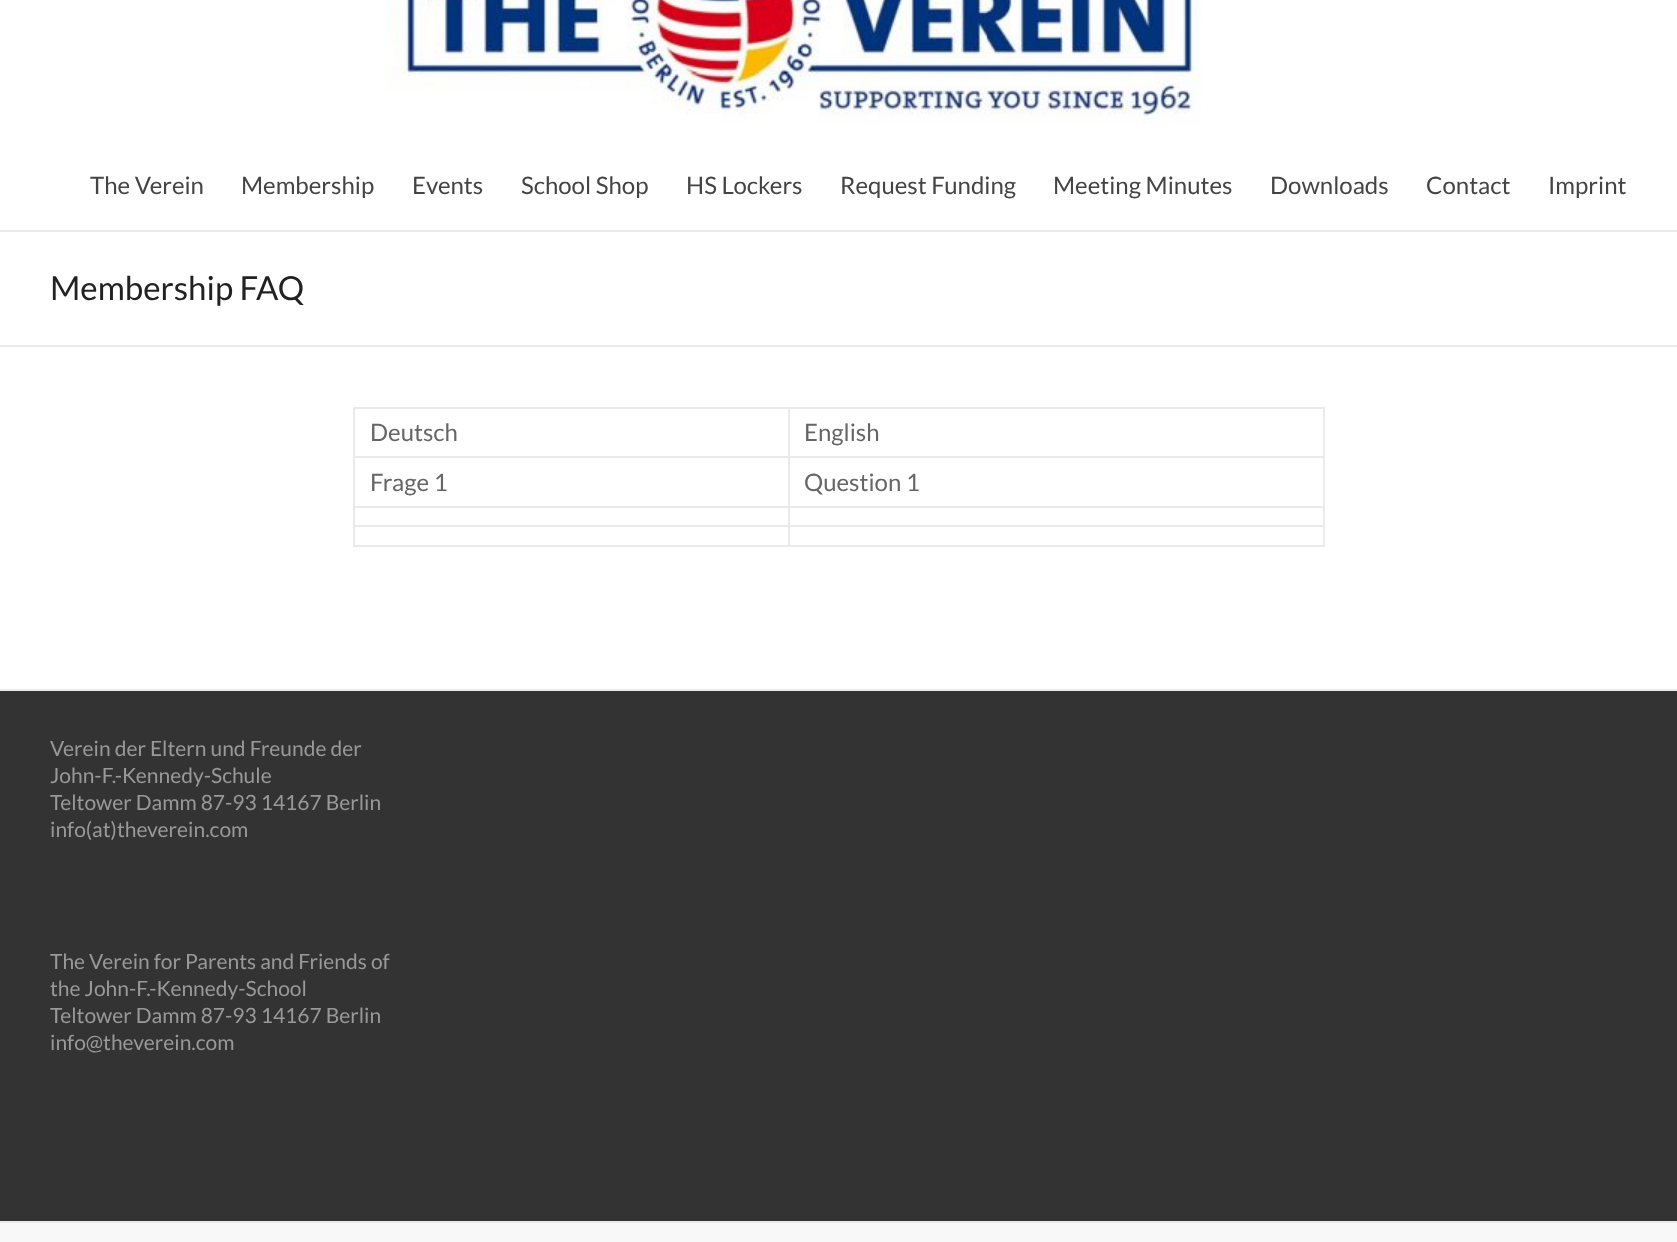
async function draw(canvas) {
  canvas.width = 1677;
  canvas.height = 1242;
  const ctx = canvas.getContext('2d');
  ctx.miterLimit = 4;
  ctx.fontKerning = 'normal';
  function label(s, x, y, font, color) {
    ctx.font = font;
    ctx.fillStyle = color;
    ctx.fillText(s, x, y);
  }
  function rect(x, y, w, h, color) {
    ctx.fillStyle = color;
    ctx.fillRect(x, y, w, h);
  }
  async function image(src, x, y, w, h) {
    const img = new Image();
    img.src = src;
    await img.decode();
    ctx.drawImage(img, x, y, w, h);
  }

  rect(0, 0, 1677, 1242, '#fff');
  rect(0, 230, 1677, 2, '#eaeaea');
  await image('assets/img1.png', 386, 0, 815, 124);
  label('The Verein', 90, 194, '24px Lato', '#444');
  label('Membership', 241, 194, '24px Lato', '#444');
  label('Events', 412, 194, '24px Lato', '#444');
  label('School Shop', 521, 194, '24px Lato', '#444');
  label('HS Lockers', 686, 194, '24px Lato', '#444');
  label('Request Funding', 840, 194, '24px Lato', '#444');
  label('Meeting Minutes', 1053, 194, '24px Lato', '#444');
  label('Downloads', 1270, 194, '24px Lato', '#444');
  label('Contact', 1426, 194, '24px Lato', '#444');
  label('Imprint', 1548, 194, '24px Lato', '#444');
  rect(0, 345, 1677, 2, '#eaeaea');
  label('Membership FAQ', 50, 300, '33px Lato', '#222');
  rect(788, 407, 537, 2, '#eaeaea');
  rect(788, 456, 537, 2, '#eaeaea');
  rect(788, 506, 537, 2, '#eaeaea');
  rect(788, 525, 537, 2, '#eaeaea');
  rect(1323, 525, 2, 21, '#eaeaea');
  rect(788, 545, 537, 2, '#eaeaea');
  rect(788, 525, 2, 21, '#eaeaea');
  rect(353, 525, 436, 2, '#eaeaea');
  rect(788, 506, 2, 21, '#eaeaea');
  rect(353, 506, 436, 2, '#eaeaea');
  rect(788, 456, 2, 51, '#eaeaea');
  rect(353, 456, 436, 2, '#eaeaea');
  rect(788, 407, 2, 51, '#eaeaea');
  rect(353, 407, 436, 2, '#eaeaea');
  rect(353, 545, 436, 2, '#eaeaea');
  rect(353, 525, 2, 21, '#eaeaea');
  rect(353, 506, 2, 21, '#eaeaea');
  rect(353, 456, 2, 51, '#eaeaea');
  rect(353, 407, 2, 51, '#eaeaea');
  label('Deutsch', 370, 441, '24px Lato', '#666');
  rect(1323, 506, 2, 21, '#eaeaea');
  rect(1323, 456, 2, 51, '#eaeaea');
  rect(1323, 407, 2, 51, '#eaeaea');
  label('English', 804, 441, '24px Lato', '#666');
  label('Frage 1', 370, 491, '24px Lato', '#666');
  label('Question 1', 804, 491, '24px Lato', '#666');
  rect(0, 691, 1677, 530, '#333');
  rect(0, 689, 1677, 2, '#eaeaea');
  label('Verein der Eltern und Freunde der', 50, 756, '21px Lato', '#999');
  label('John-F.-Kennedy-Schule', 50, 783, '21px Lato', '#999');
  label('Teltower Damm 87-93 14167 Berlin', 50, 810, '21px Lato', '#999');
  label('info(at)theverein.com', 50, 837, '21px Lato', '#999');
  label('The Verein for Parents and Friends of', 50, 969, '21px Lato', '#999');
  label('the John-F.-Kennedy-School', 50, 996, '21px Lato', '#999');
  label('Teltower Damm 87-93 14167 Berlin', 50, 1023, '21px Lato', '#999');
  label('info@theverein.com', 50, 1050, '21px Lato', '#999');
  rect(0, 1223, 1677, 19, '#f8f8f8');
  rect(0, 1221, 1677, 2, '#eaeaea');
}

draw(document.querySelector('canvas'));
